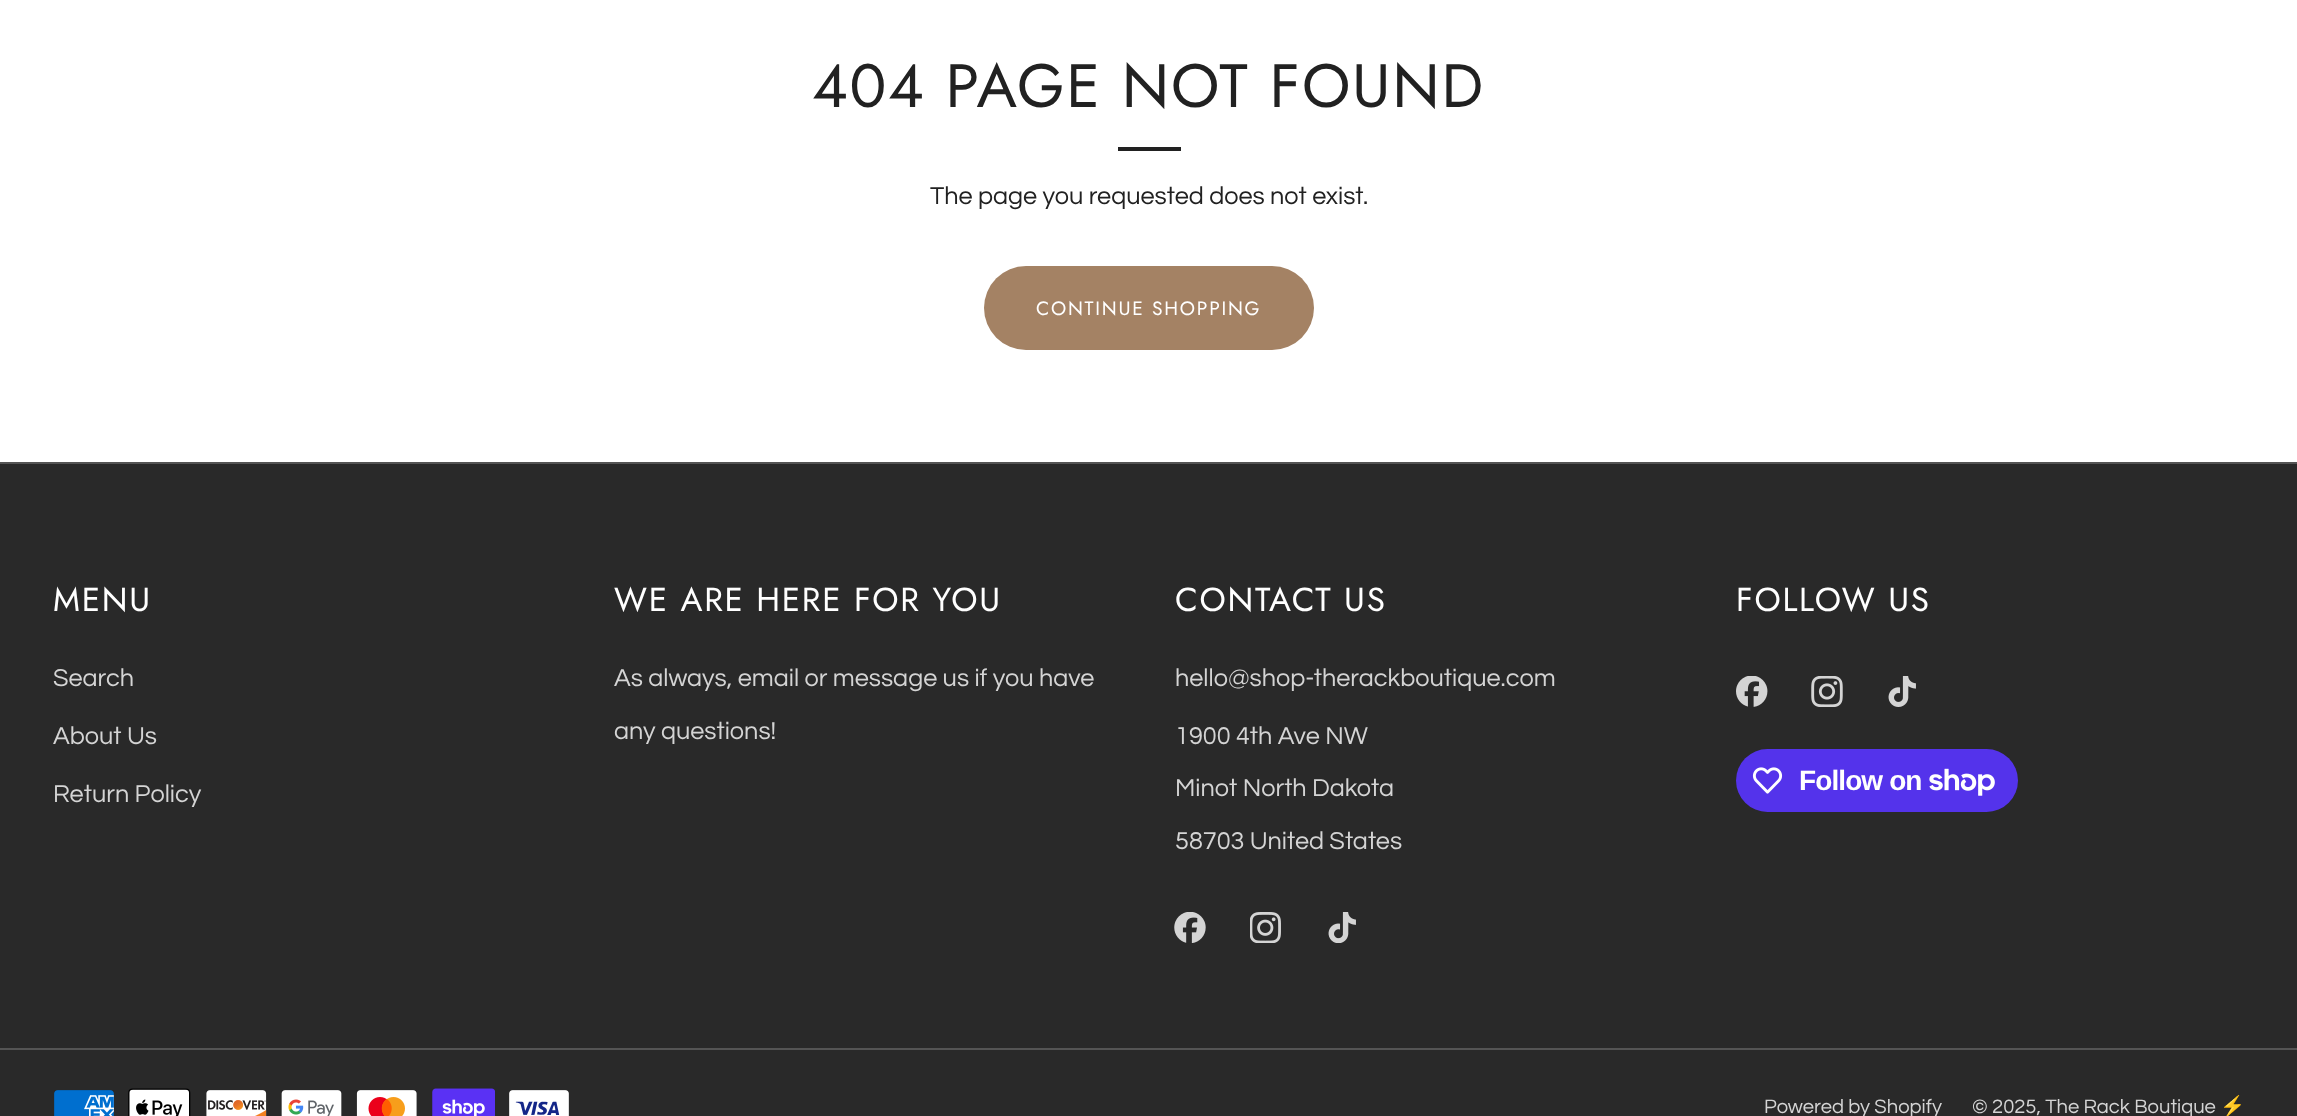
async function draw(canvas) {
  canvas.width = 2297;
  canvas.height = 1116;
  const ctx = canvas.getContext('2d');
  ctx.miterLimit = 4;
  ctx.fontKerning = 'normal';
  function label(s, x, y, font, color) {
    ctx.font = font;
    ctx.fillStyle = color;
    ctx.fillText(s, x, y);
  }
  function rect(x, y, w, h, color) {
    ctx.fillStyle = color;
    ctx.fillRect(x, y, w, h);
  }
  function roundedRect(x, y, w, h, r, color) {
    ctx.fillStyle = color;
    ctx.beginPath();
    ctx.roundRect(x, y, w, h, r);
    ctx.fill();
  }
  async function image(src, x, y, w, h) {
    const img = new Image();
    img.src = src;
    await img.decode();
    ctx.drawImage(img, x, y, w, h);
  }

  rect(0, 0, 2297, 1116, '#fff');
  ctx.letterSpacing = '1.75px';
  label('404 PAGE NOT FOUND', 812, 107, '61.25px Jost', '#212121');
  rect(1118, 147, 63, 4, '#212121');
  ctx.letterSpacing = '0px';
  label('The page you requested does not exist.', 930, 204, '25.25px Questrial', '#212121');
  roundedRect(984, 266, 330, 84, 42, '#a48264');
  ctx.letterSpacing = '1.75px';
  label('CONTINUE SHOPPING', 1036, 315, '19.25px Jost', '#fff');
  rect(0, 464, 2297, 652, '#292929');
  rect(0, 462, 2297, 2, '#545454');
  label('MENU', 53, 611, '33.25px Jost', '#fff');
  ctx.letterSpacing = '0px';
  label('Search', 53, 686, '25.25px Questrial', '#d4d4d4');
  label('About Us', 53, 744, '25.25px Questrial', '#d4d4d4');
  label('Return Policy', 53, 802, '25.25px Questrial', '#d4d4d4');
  ctx.letterSpacing = '1.75px';
  label('WE ARE HERE FOR YOU', 614, 611, '33.25px Jost', '#fff');
  ctx.letterSpacing = '0px';
  label('As always, email or message us if you have', 614, 686, '25.25px Questrial', '#d4d4d4');
  label('any questions!', 614, 739, '25.25px Questrial', '#d4d4d4');
  ctx.letterSpacing = '1.75px';
  label('CONTACT US', 1175, 611, '33.25px Jost', '#fff');
  ctx.letterSpacing = '0px';
  label('hello@shop-therackboutique.com', 1175, 686, '25.25px Questrial', '#d4d4d4');
  label('1900 4th Ave NW', 1175, 744, '25.25px Questrial', '#d4d4d4');
  label('Minot North Dakota', 1175, 796, '25.25px Questrial', '#d4d4d4');
  label('58703 United States', 1175, 849, '25.25px Questrial', '#d4d4d4');
  await image('assets/img1.png', 1174, 912, 32, 31);
  await image('assets/img2.png', 1250, 912, 31, 31);
  await image('assets/img3.png', 1328, 912, 28, 31);
  ctx.letterSpacing = '1.75px';
  label('FOLLOW US', 1736, 611, '33.25px Jost', '#fff');
  await image('assets/img4.png', 1736, 676, 32, 31);
  await image('assets/img5.png', 1811, 676, 32, 31);
  await image('assets/img6.png', 1888, 676, 28, 31);
  roundedRect(1736, 749, 282, 63, 31.5, '#5433eb');
  await image('assets/img7.png', 1752, 767, 31, 27);
  ctx.letterSpacing = '-0.9px';
  label('Follow on', 1799, 790, 'bold 28px Liberation Sans', '#fff');
  await image('assets/img8.png', 1929, 768, 66, 28);
  rect(0, 1048, 2297, 2, '#545454');
  await image('assets/img9.png', 54, 1090, 60, 26);
  await image('assets/img10.png', 128, 1088, 63, 28);
  await image('assets/img11.png', 206, 1090, 61, 26);
  await image('assets/img12.png', 281, 1090, 61, 26);
  await image('assets/img13.png', 356, 1090, 61, 26);
  await image('assets/img14.png', 432, 1088, 63, 28);
  await image('assets/img15.png', 509, 1090, 60, 26);
  ctx.letterSpacing = '0px';
  label('Powered by Shopify', 1764, 1113, '20.2px Questrial', '#d4d4d4');
  label('© 2025, The Rack Boutique', 1972, 1113, '20.2px Questrial', '#d4d4d4');
  label('⚡️', 2220, 1113, '20.2px Noto Color Emoji', '#d4d4d4');
}

draw(document.querySelector('canvas'));
